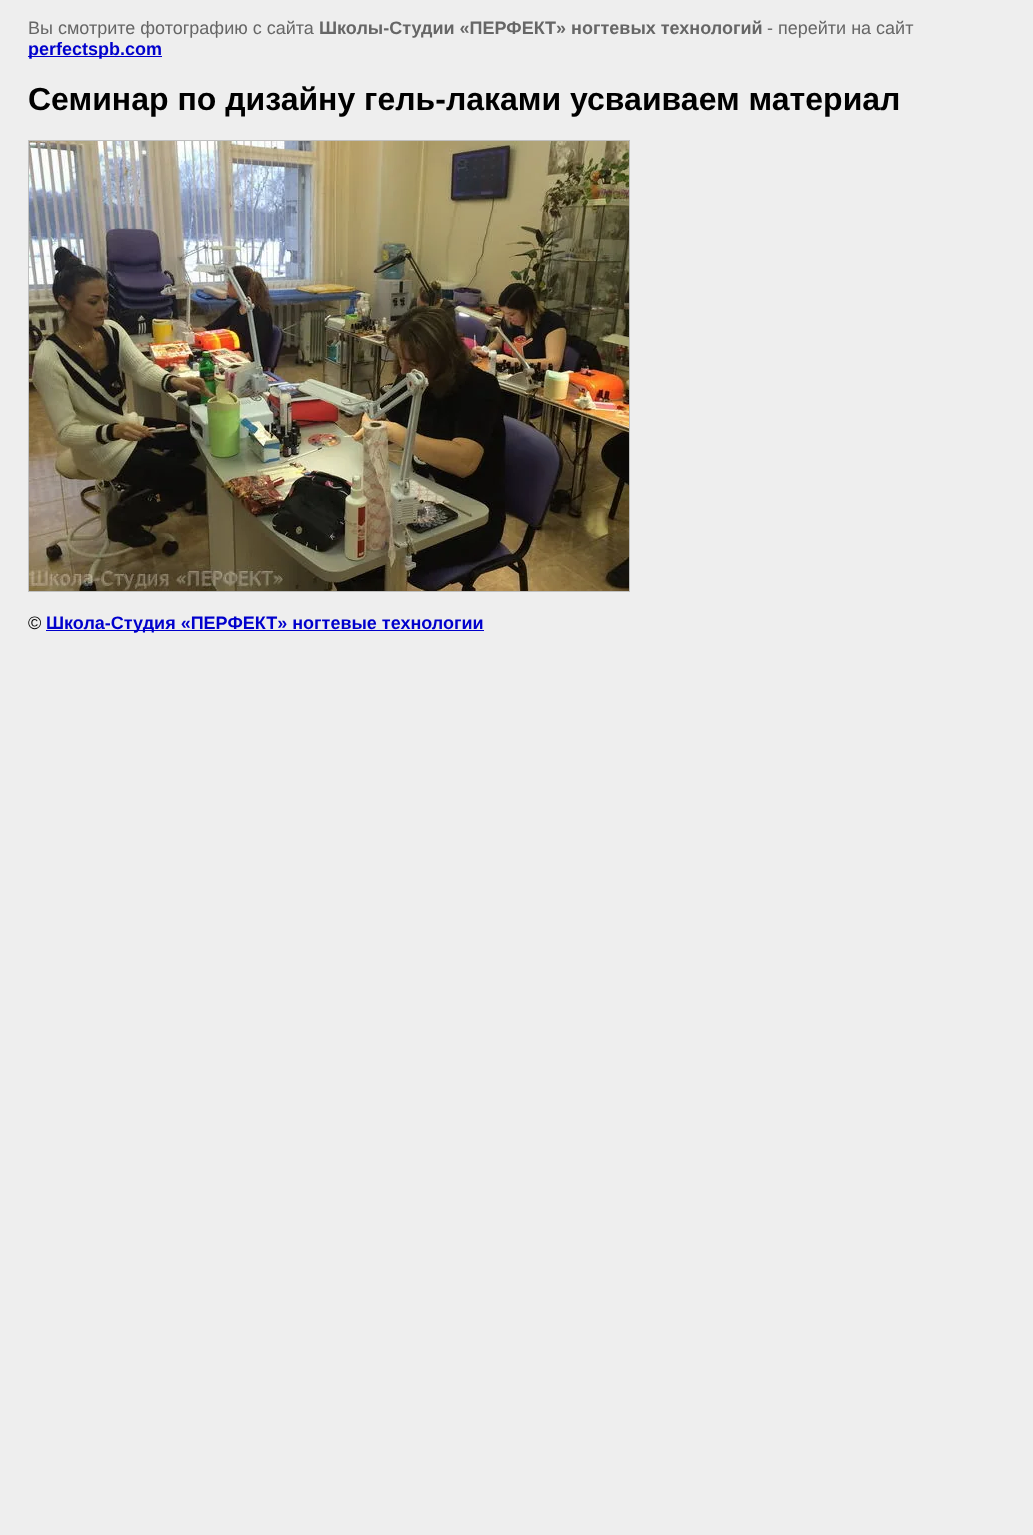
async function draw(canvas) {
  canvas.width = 1033;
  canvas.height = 1535;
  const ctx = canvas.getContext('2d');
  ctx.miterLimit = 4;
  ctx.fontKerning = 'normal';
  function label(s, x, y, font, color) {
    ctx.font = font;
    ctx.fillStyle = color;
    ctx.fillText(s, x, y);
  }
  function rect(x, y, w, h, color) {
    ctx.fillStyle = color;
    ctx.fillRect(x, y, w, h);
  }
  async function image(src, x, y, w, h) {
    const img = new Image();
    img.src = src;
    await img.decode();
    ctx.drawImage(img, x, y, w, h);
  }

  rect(0, 0, 1033, 1535, '#eee');
  label('Вы смотрите фотографию с сайта', 28, 34, '18px Liberation Sans', '#666');
  label('Школы-Студии «ПЕРФЕКТ» ногтевых технологий', 319, 34, 'bold 18px Liberation Sans', '#666');
  label('- перейти на сайт', 767, 34, '18px Liberation Sans', '#666');
  rect(28, 56, 134, 1, '#00c');
  label('perfectspb.com', 28, 55, 'bold 18px Liberation Sans', '#00c');
  label('Семинар по дизайну гель-лаками усваиваем материал', 28, 110, 'bold 32px Liberation Sans', '#000');
  ctx.strokeStyle = '#c0c0c0';
  ctx.strokeRect(28.5, 140.5, 601, 451);
  await image('assets/img1.png', 29, 141, 600, 450);
  label('©', 28, 629, '18px Liberation Sans', '#000');
  rect(46, 630, 438, 1, '#00c');
  label('Школа-Студия «ПЕРФЕКТ» ногтевые технологии', 46, 629, 'bold 18px Liberation Sans', '#00c');
}

draw(document.querySelector('canvas'));
